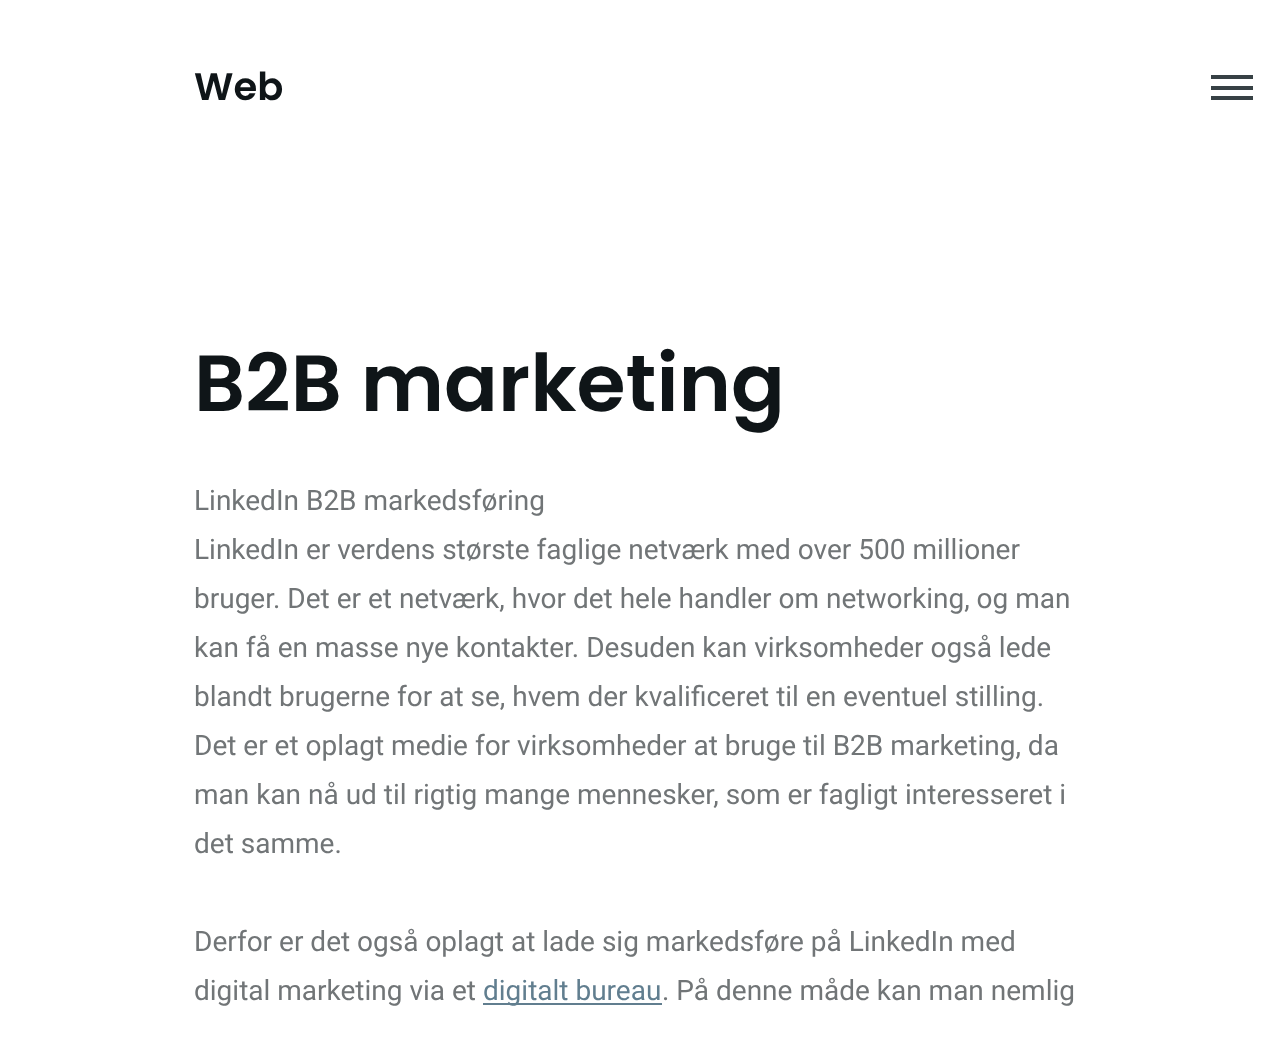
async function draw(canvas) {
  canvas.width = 1281;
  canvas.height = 1038;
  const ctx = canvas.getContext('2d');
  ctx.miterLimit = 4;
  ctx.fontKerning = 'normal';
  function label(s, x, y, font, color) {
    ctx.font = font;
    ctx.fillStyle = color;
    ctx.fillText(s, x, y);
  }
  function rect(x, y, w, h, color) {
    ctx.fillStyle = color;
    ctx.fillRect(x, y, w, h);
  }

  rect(0, 0, 1281, 1038, '#fff');
  label('Web', 194, 100, '600 38.5px Poppins', '#0f1518');
  rect(1211, 86, 42, 4, '#374145');
  rect(1211, 75, 42, 4, '#374145');
  rect(1211, 96, 42, 4, '#374145');
  label('B2B marketing', 194, 411, '600 79.5px Poppins', '#0f1518');
  label('LinkedIn B2B markedsføring', 194, 510, '28px Roboto', '#717577');
  label('LinkedIn er verdens største faglige netværk med over 500 millioner', 194, 559, '28px Roboto', '#717577');
  label('bruger. Det er et netværk, hvor det hele handler om networking, og man', 194, 608, '28px Roboto', '#717577');
  label('kan få en masse nye kontakter. Desuden kan virksomheder også lede', 194, 657, '28px Roboto', '#717577');
  label('blandt brugerne for at se, hvem der kvalificeret til en eventuel stilling.', 194, 706, '28px Roboto', '#717577');
  label('Det er et oplagt medie for virksomheder at bruge til B2B marketing, da', 194, 755, '28px Roboto', '#717577');
  label('man kan nå ud til rigtig mange mennesker, som er fagligt interesseret i', 194, 804, '28px Roboto', '#717577');
  label('det samme.', 194, 853, '28px Roboto', '#717577');
  label('Derfor er det også oplagt at lade sig markedsføre på LinkedIn med', 194, 951, '28px Roboto', '#717577');
  label('digital marketing via et', 194, 1000, '28px Roboto', '#717577');
  rect(483, 1003, 179, 2, '#617e8f');
  label('digitalt bureau', 483, 1000, '28px Roboto', '#617e8f');
  label('. På denne måde kan man nemlig', 662, 1000, '28px Roboto', '#717577');
}

draw(document.querySelector('canvas'));
